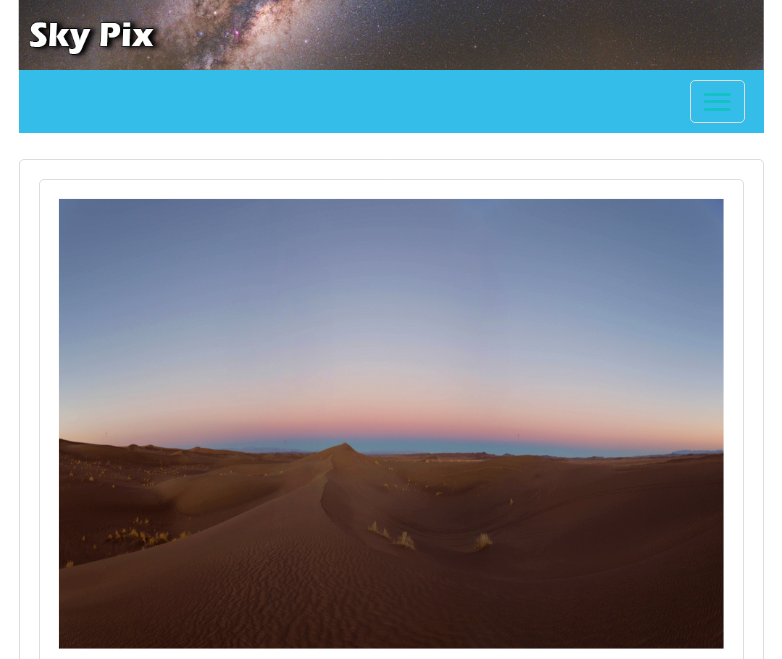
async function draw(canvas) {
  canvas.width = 782;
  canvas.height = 659;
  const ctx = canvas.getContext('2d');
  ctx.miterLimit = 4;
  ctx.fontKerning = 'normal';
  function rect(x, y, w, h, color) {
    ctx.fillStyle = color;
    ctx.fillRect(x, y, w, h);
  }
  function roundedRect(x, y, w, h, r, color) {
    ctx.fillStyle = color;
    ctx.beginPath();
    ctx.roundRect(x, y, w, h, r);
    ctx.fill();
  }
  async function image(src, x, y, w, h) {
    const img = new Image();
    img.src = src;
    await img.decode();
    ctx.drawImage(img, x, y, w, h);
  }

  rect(0, 0, 782, 659, '#fff');
  await image('assets/img1.png', 18, 0, 746, 70);
  rect(19, 70, 745, 63, '#34bde9');
  ctx.beginPath();
  ctx.roundRect(690.5, 80.5, 54, 42, 4.5);
  ctx.strokeStyle = '#ddd';
  ctx.stroke();
  roundedRect(704, 93, 27, 3, 1.5, '#14c1c5');
  roundedRect(704, 100, 27, 3, 1.5, '#14c1c5');
  roundedRect(704, 108, 27, 3, 1.5, '#14c1c5');
  ctx.beginPath();
  ctx.roundRect(19.5, 159.5, 744, 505, 4.5);
  ctx.stroke();
  ctx.beginPath();
  ctx.roundRect(39.5, 179.5, 704, 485, 4.5);
  ctx.stroke();
  await image('assets/img2.png', 58, 198, 666, 451);
}

draw(document.querySelector('canvas'));
